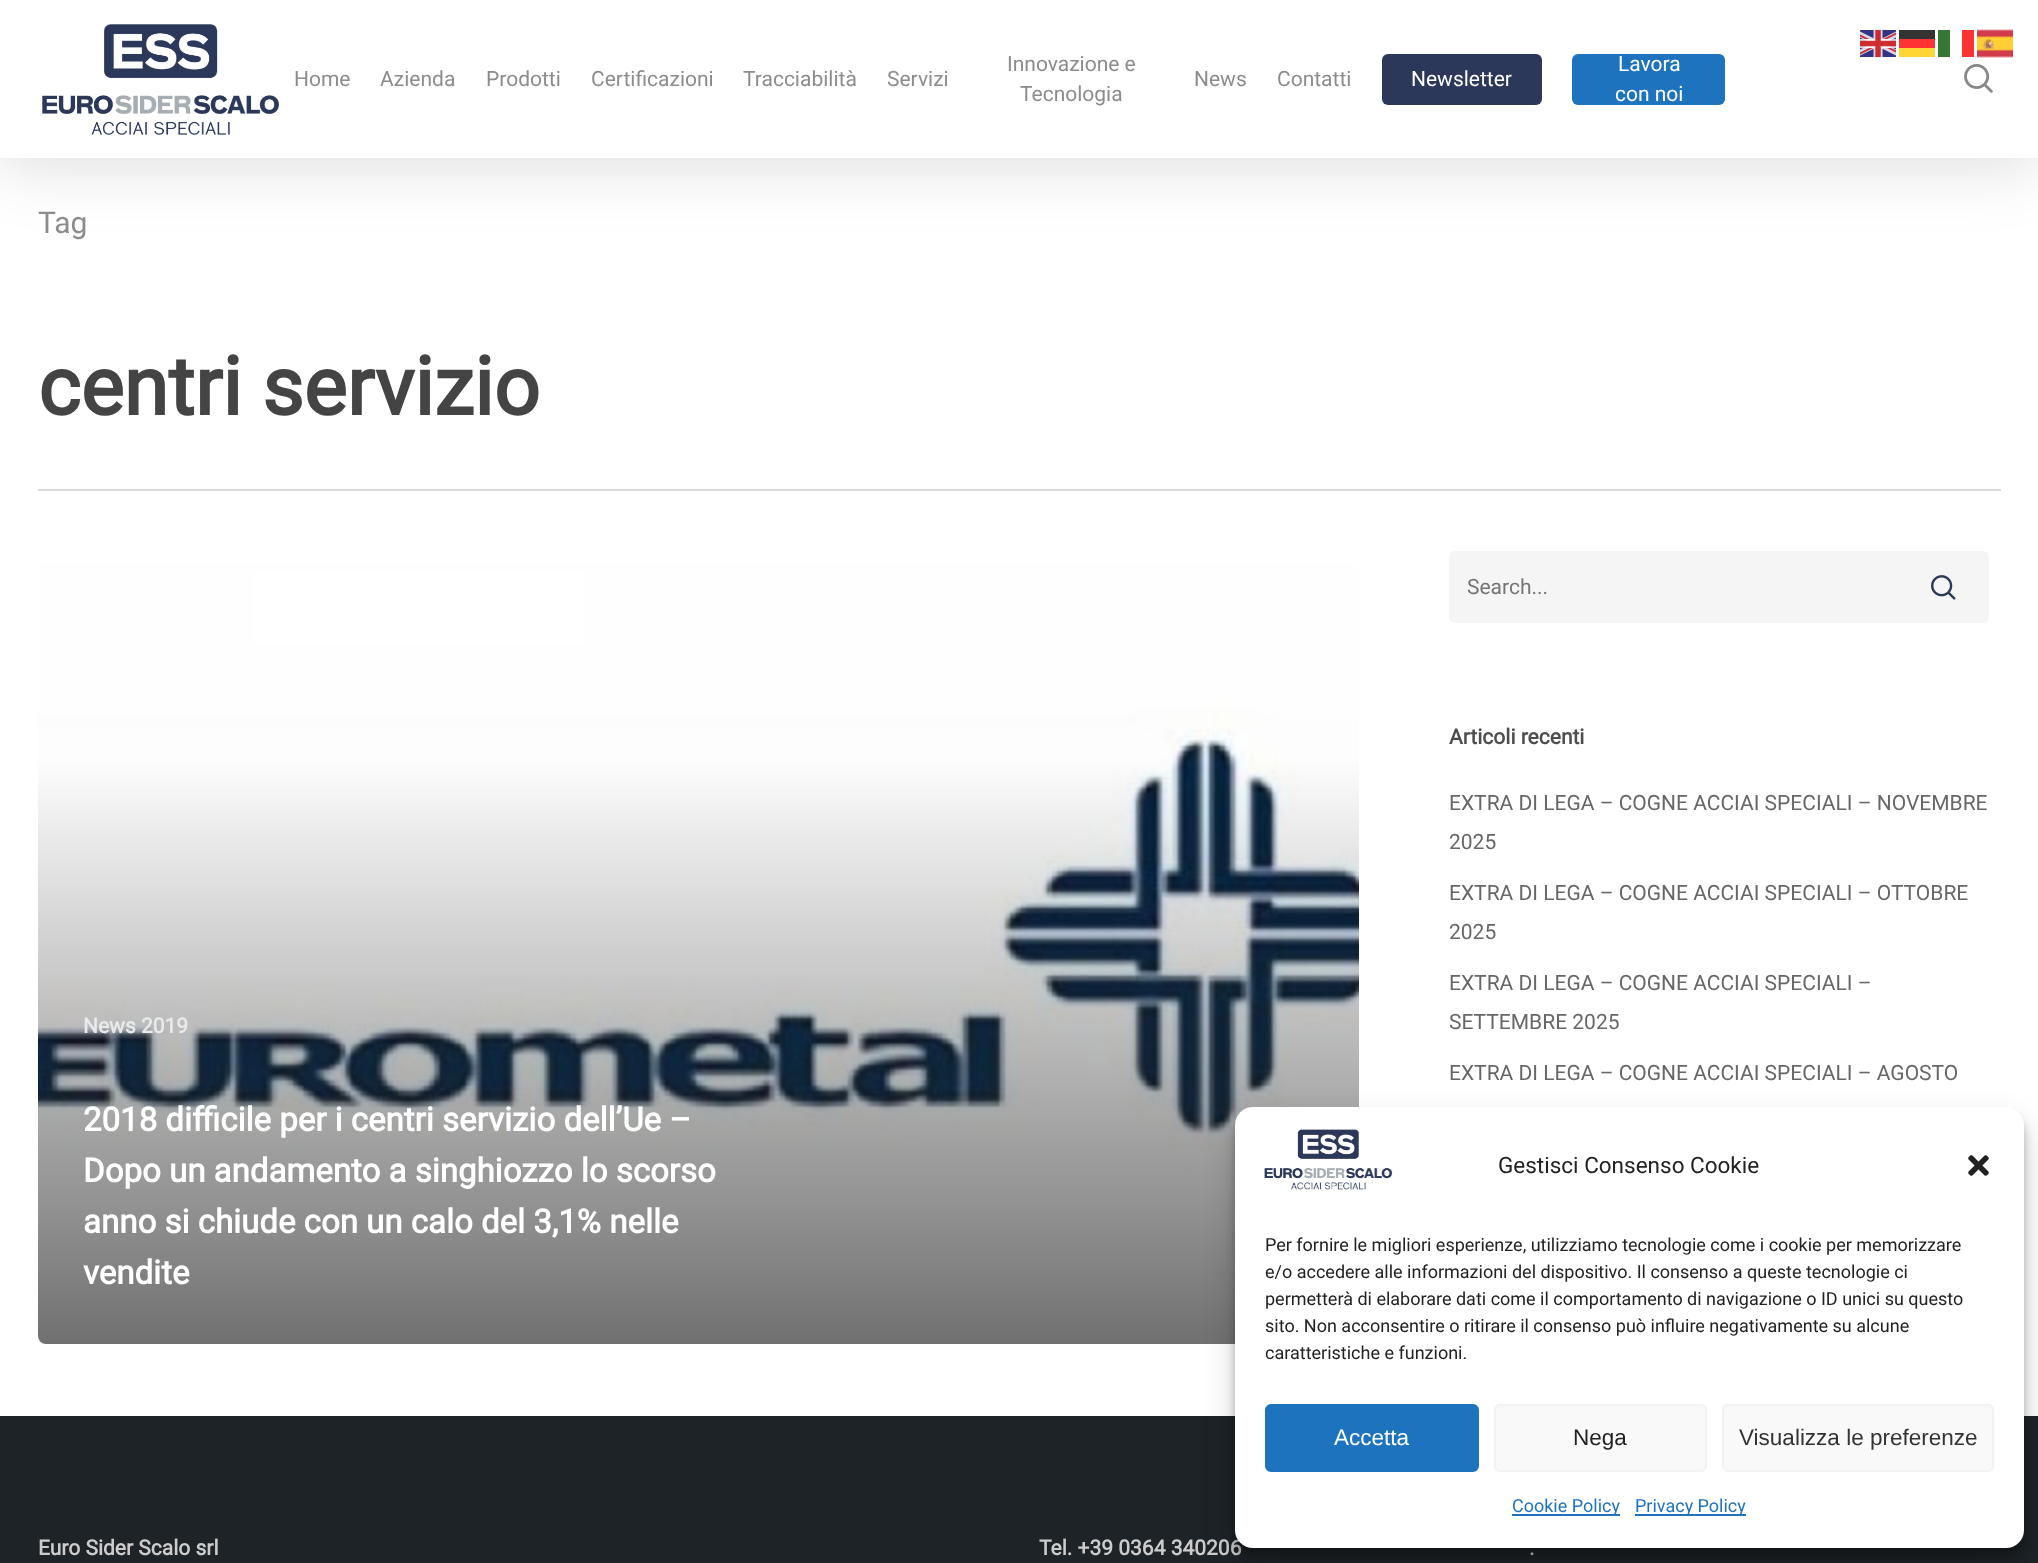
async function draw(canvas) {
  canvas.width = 2038;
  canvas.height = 1563;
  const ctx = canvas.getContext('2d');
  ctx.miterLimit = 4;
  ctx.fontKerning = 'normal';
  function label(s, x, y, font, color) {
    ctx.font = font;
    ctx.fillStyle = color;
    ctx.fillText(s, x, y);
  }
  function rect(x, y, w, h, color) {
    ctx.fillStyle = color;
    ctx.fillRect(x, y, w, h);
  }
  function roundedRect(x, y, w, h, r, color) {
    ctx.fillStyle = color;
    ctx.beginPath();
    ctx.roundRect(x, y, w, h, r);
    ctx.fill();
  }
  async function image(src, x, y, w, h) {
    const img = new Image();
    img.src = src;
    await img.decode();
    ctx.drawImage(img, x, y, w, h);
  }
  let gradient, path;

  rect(0, 0, 2038, 1563, '#fff');
  ctx.save();
  path = new Path2D('M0 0H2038V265H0ZM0 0H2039V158H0Z');
  ctx.clip(path, 'evenodd');
  ctx.fillStyle = '#00000026';
  ctx.filter = 'blur(34px)';
  ctx.beginPath();
  ctx.rect(0, 5, 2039, 157);
  ctx.fill();
  ctx.filter = 'none';
  ctx.restore();
  await image('assets/img1.png', 1860, 30, 36, 27);
  rect(1899, 30, 36, 9, '#333');
  rect(1938, 30, 12, 27, '#337933');
  rect(1962, 30, 12, 27, '#fd3333');
  await image('assets/img2.png', 1977, 29, 36, 29);
  rect(1899, 39, 36, 9, '#f33');
  rect(1899, 48, 36, 9, '#ffd633');
  rect(0, 157, 2038, 1, '#ffffffc7');
  await image('assets/img3.png', 42, 24, 237, 111);
  label('Home', 294, 86, '21px Roboto', '#8c8c8c');
  label('Azienda', 380, 86, '21px Roboto', '#8c8c8c');
  label('Prodotti', 486, 86, '21px Roboto', '#8c8c8c');
  label('Certificazioni', 591, 86, '21px Roboto', '#8c8c8c');
  label('Tracciabilità', 743, 86, '21px Roboto', '#8c8c8c');
  label('Servizi', 887, 86, '21px Roboto', '#8c8c8c');
  label('Innovazione e', 1007, 71, '21px Roboto', '#8c8c8c');
  label('Tecnologia', 1020, 101, '21px Roboto', '#8c8c8c');
  label('News', 1194, 86, '21px Roboto', '#8c8c8c');
  label('Contatti', 1277, 86, '21px Roboto', '#8c8c8c');
  roundedRect(1382, 54, 160, 51, 6, '#2b3859');
  label('Newsletter', 1411, 86, '21px Roboto', '#fff');
  roundedRect(1572, 54, 153, 51, 6, '#1e73be');
  label('Lavora', 1618, 71, '21px Roboto', '#fff');
  label('con noi', 1615, 101, '21px Roboto', '#fff');
  await image('assets/img4.png', 1964, 64, 29, 29);
  rect(38, 489, 1963, 2, '#d9d9d9');
  label('Tag', 38, 233, '30px Roboto', '#8c8c8c');
  label('centri servizio', 38, 415, 'bold 81px Roboto', '#444');
  roundedRect(1449, 551, 540, 72, 6, '#f5f5f5');
  label('Search...', 1467, 594, '21px Roboto', '#757575');
  await image('assets/img5.png', 1931, 575, 25, 25);
  label('Articoli recenti', 1449, 744, 'bold 21px Roboto', '#4d4d4d');
  label('EXTRA DI LEGA – COGNE ACCIAI SPECIALI – NOVEMBRE', 1449, 810, '21px Roboto', '#676767');
  label('2025', 1449, 849, '21px Roboto', '#676767');
  label('EXTRA DI LEGA – COGNE ACCIAI SPECIALI – OTTOBRE', 1449, 900, '21px Roboto', '#676767');
  label('2025', 1449, 939, '21px Roboto', '#676767');
  label('EXTRA DI LEGA – COGNE ACCIAI SPECIALI –', 1449, 990, '21px Roboto', '#676767');
  label('SETTEMBRE 2025', 1449, 1029, '21px Roboto', '#676767');
  label('EXTRA DI LEGA – COGNE ACCIAI SPECIALI – AGOSTO', 1449, 1080, '21px Roboto', '#676767');
  await image('assets/img6.png', 38, 563, 1321, 781);
  gradient = ctx.createLinearGradient(701, 759, 701, 1347);
  gradient.addColorStop(0, '#23232300');
  gradient.addColorStop(1, '#232323a6');
  ctx.fillStyle = gradient;
  ctx.beginPath();
  ctx.roundRect(38, 759, 1321, 585, [0, 0, 8, 8]);
  ctx.fill();
  label('News 2019', 83, 1033, 'bold 21px Roboto', '#e9eaea');
  label('2018 difficile per i centri servizio dell’Ue –', 83, 1131, 'bold 33px Roboto', '#fff');
  label('Dopo un andamento a singhiozzo lo scorso', 83, 1182, 'bold 33px Roboto', '#fff');
  label('anno si chiude con un calo del 3,1% nelle', 83, 1233, 'bold 33px Roboto', '#fff');
  label('vendite', 83, 1284, 'bold 33px Roboto', '#fff');
  rect(0, 1416, 2038, 147, '#1d2327');
  label('Euro Sider Scalo srl', 38, 1555, 'bold 21px Roboto', '#ccc');
  label('Tel. +39 0364 340206', 1039, 1555, 'bold 21px Roboto', '#ccc');
  label('.', 1529, 1555, 'bold 21px Roboto', '#ccc');
  ctx.fillStyle = '#0000003b';
  ctx.filter = 'blur(4.5px)';
  ctx.beginPath();
  ctx.roundRect(1235, 1116, 789, 441, 18);
  ctx.fill();
  ctx.filter = 'none';
  ctx.fillStyle = '#00000030';
  ctx.filter = 'blur(15px)';
  ctx.beginPath();
  ctx.roundRect(1235, 1122, 789, 441, 18);
  ctx.fill();
  ctx.filter = 'none';
  roundedRect(1235, 1107, 789, 441, 18, '#fff');
  await image('assets/img7.png', 1264, 1129, 129, 61);
  label('Gestisci Consenso Cookie', 1498, 1173, '22.5px Roboto', '#222');
  await image('assets/img8.png', 1968, 1155, 21, 21);
  label('Per fornire le migliori esperienze, utilizziamo tecnologie come i cookie per memorizzare', 1265, 1251, '18px Roboto', '#222');
  label('e/o accedere alle informazioni del dispositivo. Il consenso a queste tecnologie ci', 1265, 1278, '18px Roboto', '#222');
  label('permetterà di elaborare dati come il comportamento di navigazione o ID unici su questo', 1265, 1305, '18px Roboto', '#222');
  label('sito. Non acconsentire o ritirare il consenso può influire negativamente su alcune', 1265, 1332, '18px Roboto', '#222');
  label('caratteristiche e funzioni.', 1265, 1359, '18px Roboto', '#222');
  ctx.fillStyle = '#1e73be';
  ctx.beginPath();
  ctx.roundRect(1266, 1405, 212, 66, 5);
  ctx.fill();
  ctx.strokeStyle = '#1e73be';
  ctx.lineWidth = 2;
  ctx.stroke();
  label('Accetta', 1334, 1445, '22.5px Liberation Sans', '#fff');
  ctx.fillStyle = '#f9f9f9';
  ctx.beginPath();
  ctx.roundRect(1495, 1405, 211, 66, 5);
  ctx.fill();
  ctx.strokeStyle = '#f2f2f2';
  ctx.stroke();
  label('Nega', 1573, 1445, '22.5px Liberation Sans', '#222');
  ctx.fillStyle = '#f9f9f9';
  ctx.beginPath();
  ctx.roundRect(1723, 1405, 270, 66, 5);
  ctx.fill();
  ctx.stroke();
  label('Visualizza le preferenze', 1739, 1445, '22.5px Liberation Sans', '#333');
  rect(1512, 1514, 108, 2, '#1e73be');
  label('Cookie Policy', 1512, 1512, '18px Roboto', '#1e73be');
  rect(1635, 1514, 111, 2, '#1e73be');
  label('Privacy Policy', 1635, 1512, '18px Roboto', '#1e73be');
}

draw(document.querySelector('canvas'));
